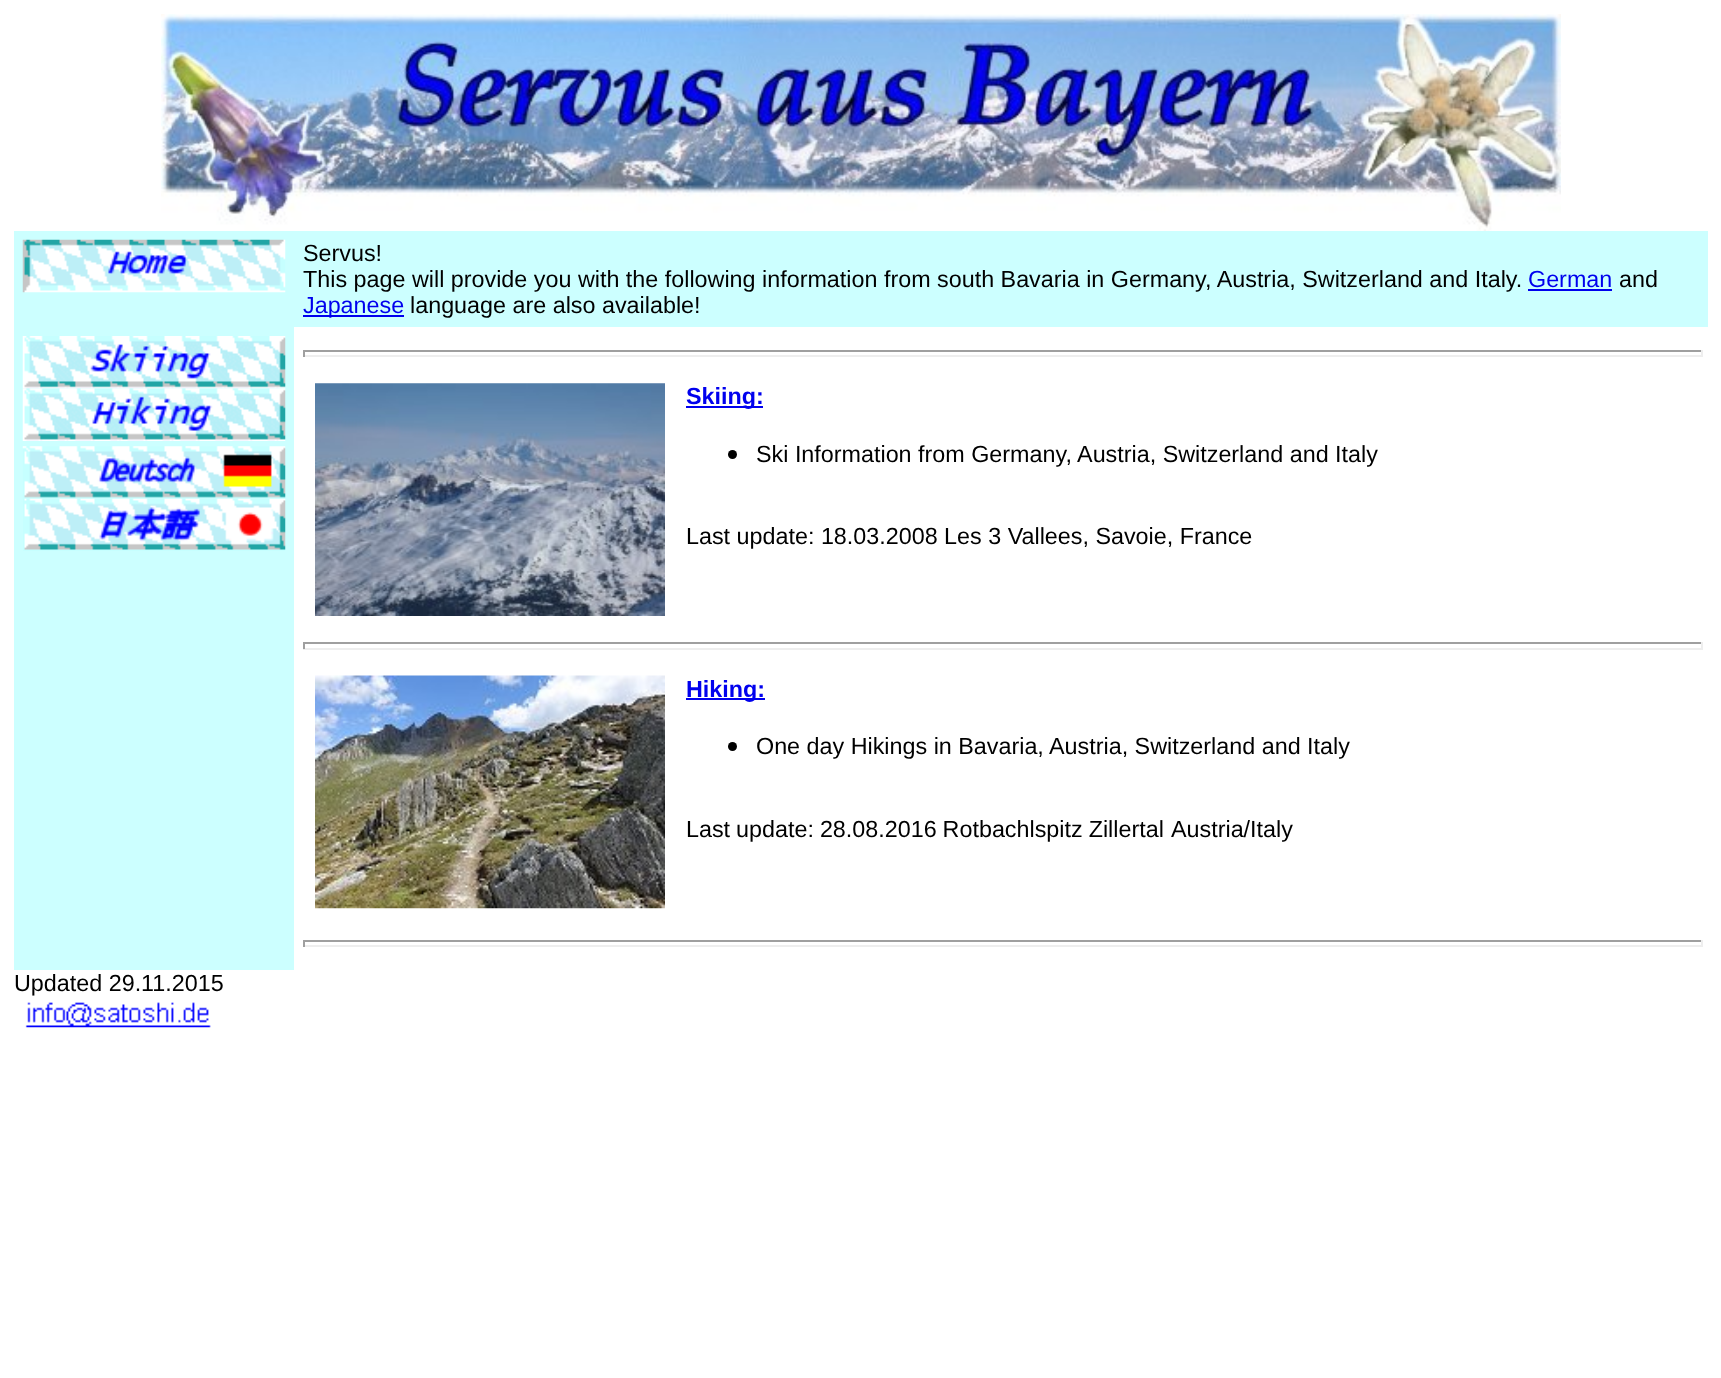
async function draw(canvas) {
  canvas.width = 1721;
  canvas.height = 1378;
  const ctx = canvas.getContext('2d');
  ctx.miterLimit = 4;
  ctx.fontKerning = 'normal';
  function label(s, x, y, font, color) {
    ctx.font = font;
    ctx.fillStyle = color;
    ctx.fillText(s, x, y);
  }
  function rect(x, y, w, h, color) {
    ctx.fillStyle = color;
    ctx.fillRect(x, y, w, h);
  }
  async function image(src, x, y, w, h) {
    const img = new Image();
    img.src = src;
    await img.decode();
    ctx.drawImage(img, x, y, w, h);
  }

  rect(0, 0, 1721, 1378, '#fff');
  await image('assets/img1.png', 161, 14, 1400, 217);
  rect(14, 231, 1694, 96, '#cff');
  await image('assets/img2.png', 22, 239, 264, 54);
  label('Servus!', 303, 261, '23.33px Liberation Sans', '#000');
  label('This page will provide you with the following information from south Bavaria in Germany, Austria, Switzerland and Italy.', 303, 287, '23.33px Liberation Sans', '#000');
  label('German', 1528, 287, '23.33px Liberation Sans', '#00e');
  rect(1528, 289, 84, 2, '#00e');
  label('and', 1619, 287, '23.33px Liberation Sans', '#000');
  rect(303, 315, 101, 2, '#00e');
  label('Japanese', 303, 313, '23.33px Liberation Sans', '#00e');
  label('language are also available!', 410, 313, '23.33px Liberation Sans', '#000');
  rect(14, 327, 280, 643, '#cff');
  await image('assets/img3.png', 22, 336, 264, 53);
  await image('assets/img4.png', 22, 388, 264, 53);
  await image('assets/img5.png', 22, 446, 264, 53);
  await image('assets/img6.png', 23, 498, 263, 53);
  rect(303, 350, 1400, 2, '#9f9f9f');
  rect(1701, 350, 2, 7, '#eee');
  rect(303, 355, 1400, 2, '#eee');
  rect(303, 350, 2, 7, '#9f9f9f');
  await image('assets/img7.png', 315, 383, 350, 233);
  rect(686, 406, 77, 2, '#00e');
  label('Skiing:', 686, 404, 'bold 23.33px Liberation Sans', '#00e');
  ctx.fillStyle = '#000';
  ctx.beginPath();
  ctx.arc(732.5, 454.5, 4.5, 0, 2 * Math.PI);
  ctx.fill();
  label('Ski Information from Germany, Austria, Switzerland and Italy', 756, 462, '23.33px Liberation Sans', '#000');
  label('Last update: 18.03.2008 Les 3 Vallees, Savoie, France', 686, 544, '23.33px Liberation Sans', '#000');
  rect(303, 642, 1400, 2, '#9f9f9f');
  rect(1701, 642, 2, 7, '#eee');
  rect(303, 648, 1400, 2, '#eee');
  rect(303, 642, 2, 7, '#9f9f9f');
  await image('assets/img8.png', 315, 675, 350, 234);
  rect(686, 698, 79, 2, '#00e');
  label('Hiking:', 686, 697, 'bold 23.33px Liberation Sans', '#00e');
  ctx.fillStyle = '#000';
  ctx.beginPath();
  ctx.arc(732.5, 746.5, 4.5, 0, 2 * Math.PI);
  ctx.fill();
  label('One day Hikings in Bavaria, Austria, Switzerland and Italy', 756, 754, '23.33px Liberation Sans', '#000');
  ctx.wordSpacing = '-0.5px';
  label('Last update: 28.08.2016 Rotbachlspitz Zillertal', 686, 837, '23.33px Liberation Sans', '#000');
  ctx.wordSpacing = '0px';
  label('Austria/Italy', 1171, 837, '23.33px Liberation Sans', '#000');
  rect(303, 940, 1400, 2, '#9f9f9f');
  rect(1701, 940, 2, 7, '#eee');
  rect(303, 945, 1400, 2, '#eee');
  rect(303, 940, 2, 7, '#9f9f9f');
  label('Updated 29.11.2015', 14, 991, '23.33px Liberation Sans', '#000');
  await image('assets/img9.png', 25, 995, 186, 33);
}

draw(document.querySelector('canvas'));
